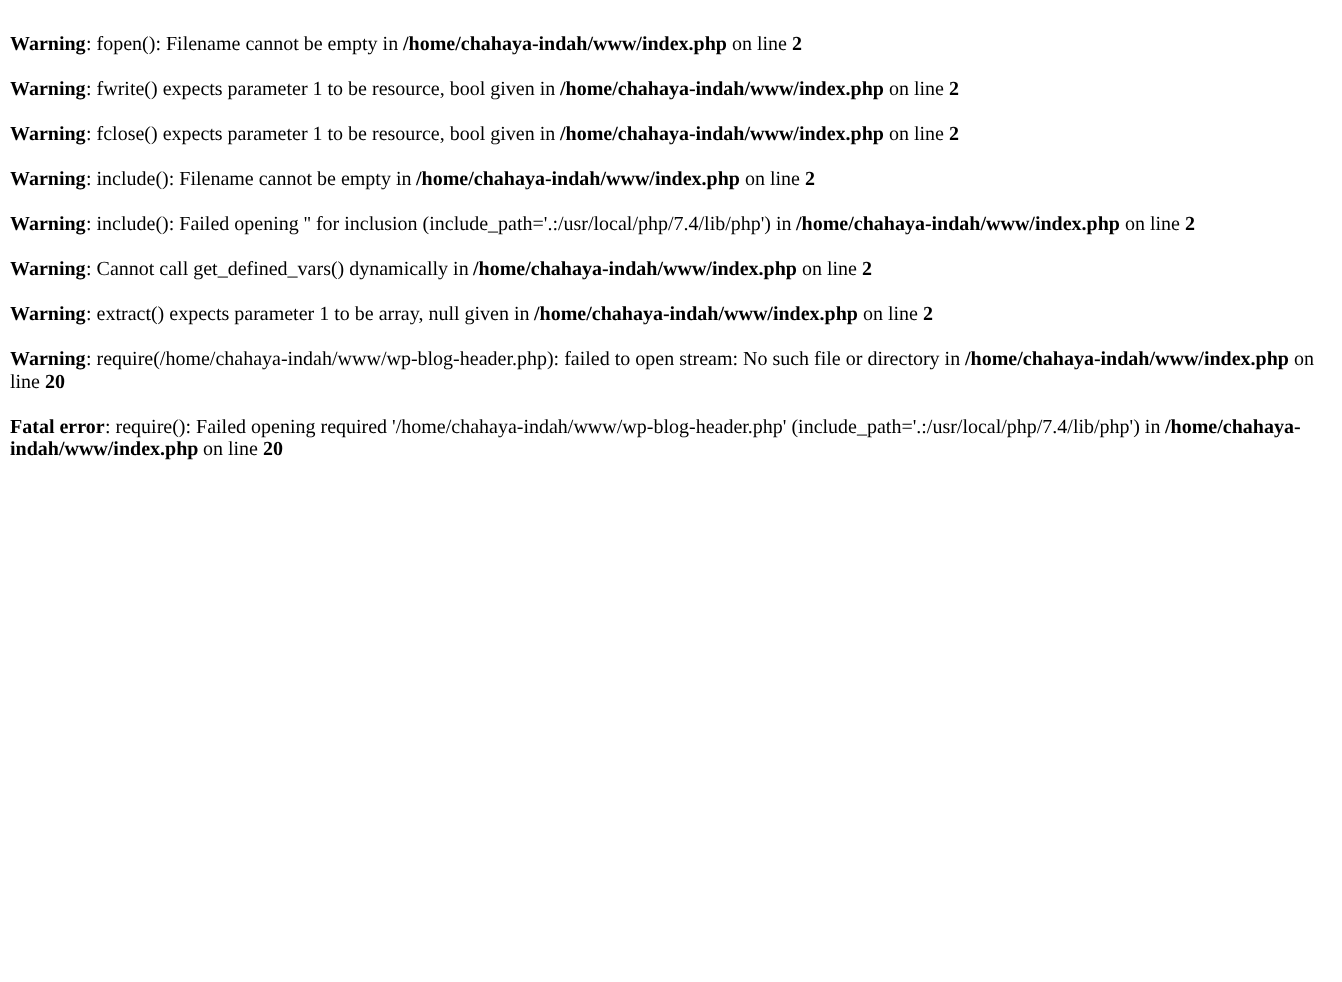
async function draw(canvas) {
  canvas.width = 1342;
  canvas.height = 982;
  const ctx = canvas.getContext('2d');
  ctx.miterLimit = 4;
  ctx.fontKerning = 'normal';
  function label(s, x, y, font, color) {
    ctx.font = font;
    ctx.fillStyle = color;
    ctx.fillText(s, x, y);
  }
  function rect(x, y, w, h, color) {
    ctx.fillStyle = color;
    ctx.fillRect(x, y, w, h);
  }

  rect(0, 0, 1342, 982, '#fff');
  label('Warning', 10, 50, 'bold 20px Liberation Serif', '#000');
  label(': fopen(): Filename cannot be empty in', 86, 50, '20px Liberation Serif', '#000');
  label('/home/chahaya-indah/www/index.php', 403, 50, 'bold 20px Liberation Serif', '#000');
  label('on line', 732, 50, '20px Liberation Serif', '#000');
  label('2', 792, 50, 'bold 20px Liberation Serif', '#000');
  label('Warning', 10, 95, 'bold 20px Liberation Serif', '#000');
  label(': fwrite() expects parameter 1 to be resource, bool given in', 86, 95, '20px Liberation Serif', '#000');
  label('/home/chahaya-indah/www/index.php', 560, 95, 'bold 20px Liberation Serif', '#000');
  label('on line', 889, 95, '20px Liberation Serif', '#000');
  label('2', 949, 95, 'bold 20px Liberation Serif', '#000');
  label('Warning', 10, 140, 'bold 20px Liberation Serif', '#000');
  label(': fclose() expects parameter 1 to be resource, bool given in', 86, 140, '20px Liberation Serif', '#000');
  label('/home/chahaya-indah/www/index.php', 560, 140, 'bold 20px Liberation Serif', '#000');
  label('on line', 889, 140, '20px Liberation Serif', '#000');
  label('2', 949, 140, 'bold 20px Liberation Serif', '#000');
  label('Warning', 10, 185, 'bold 20px Liberation Serif', '#000');
  label(': include(): Filename cannot be empty in', 86, 185, '20px Liberation Serif', '#000');
  label('/home/chahaya-indah/www/index.php', 416, 185, 'bold 20px Liberation Serif', '#000');
  label('on line', 745, 185, '20px Liberation Serif', '#000');
  label('2', 805, 185, 'bold 20px Liberation Serif', '#000');
  label('Warning', 10, 230, 'bold 20px Liberation Serif', '#000');
  label(': include(): Failed opening \'\' for inclusion (include_path=\'.:/usr/local/php/7.4/lib/php\') in', 86, 230, '20px Liberation Serif', '#000');
  label('/home/chahaya-indah/www/index.php', 796, 230, 'bold 20px Liberation Serif', '#000');
  label('on line', 1125, 230, '20px Liberation Serif', '#000');
  label('2', 1185, 230, 'bold 20px Liberation Serif', '#000');
  label('Warning', 10, 275, 'bold 20px Liberation Serif', '#000');
  label(': Cannot call get_defined_vars() dynamically in', 86, 275, '20px Liberation Serif', '#000');
  label('/home/chahaya-indah/www/index.php', 473, 275, 'bold 20px Liberation Serif', '#000');
  label('on line', 802, 275, '20px Liberation Serif', '#000');
  label('2', 862, 275, 'bold 20px Liberation Serif', '#000');
  label('Warning', 10, 320, 'bold 20px Liberation Serif', '#000');
  label(': extract() expects parameter 1 to be array, null given in', 86, 320, '20px Liberation Serif', '#000');
  label('/home/chahaya-indah/www/index.php', 534, 320, 'bold 20px Liberation Serif', '#000');
  label('on line', 863, 320, '20px Liberation Serif', '#000');
  label('2', 923, 320, 'bold 20px Liberation Serif', '#000');
  label('Warning', 10, 365, 'bold 20px Liberation Serif', '#000');
  label(': require(/home/chahaya-indah/www/wp-blog-header.php): failed to open stream: No such file or directory in', 86, 365, '20px Liberation Serif', '#000');
  label('/home/chahaya-indah/www/index.php', 965, 365, 'bold 20px Liberation Serif', '#000');
  label('on', 1294, 365, '20px Liberation Serif', '#000');
  label('line', 10, 388, '20px Liberation Serif', '#000');
  label('20', 45, 388, 'bold 20px Liberation Serif', '#000');
  label('Fatal error', 10, 433, 'bold 20px Liberation Serif', '#000');
  label(': require(): Failed opening required \'/home/chahaya-indah/www/wp-blog-header.php\' (include_path=\'.:/usr/local/php/7.4/lib/php\') in', 105, 433, '20px Liberation Serif', '#000');
  label('/home/chahaya-', 1165, 433, 'bold 20px Liberation Serif', '#000');
  label('indah/www/index.php', 10, 455, 'bold 20px Liberation Serif', '#000');
  label('on line', 203, 455, '20px Liberation Serif', '#000');
  label('20', 263, 455, 'bold 20px Liberation Serif', '#000');
}

draw(document.querySelector('canvas'));
